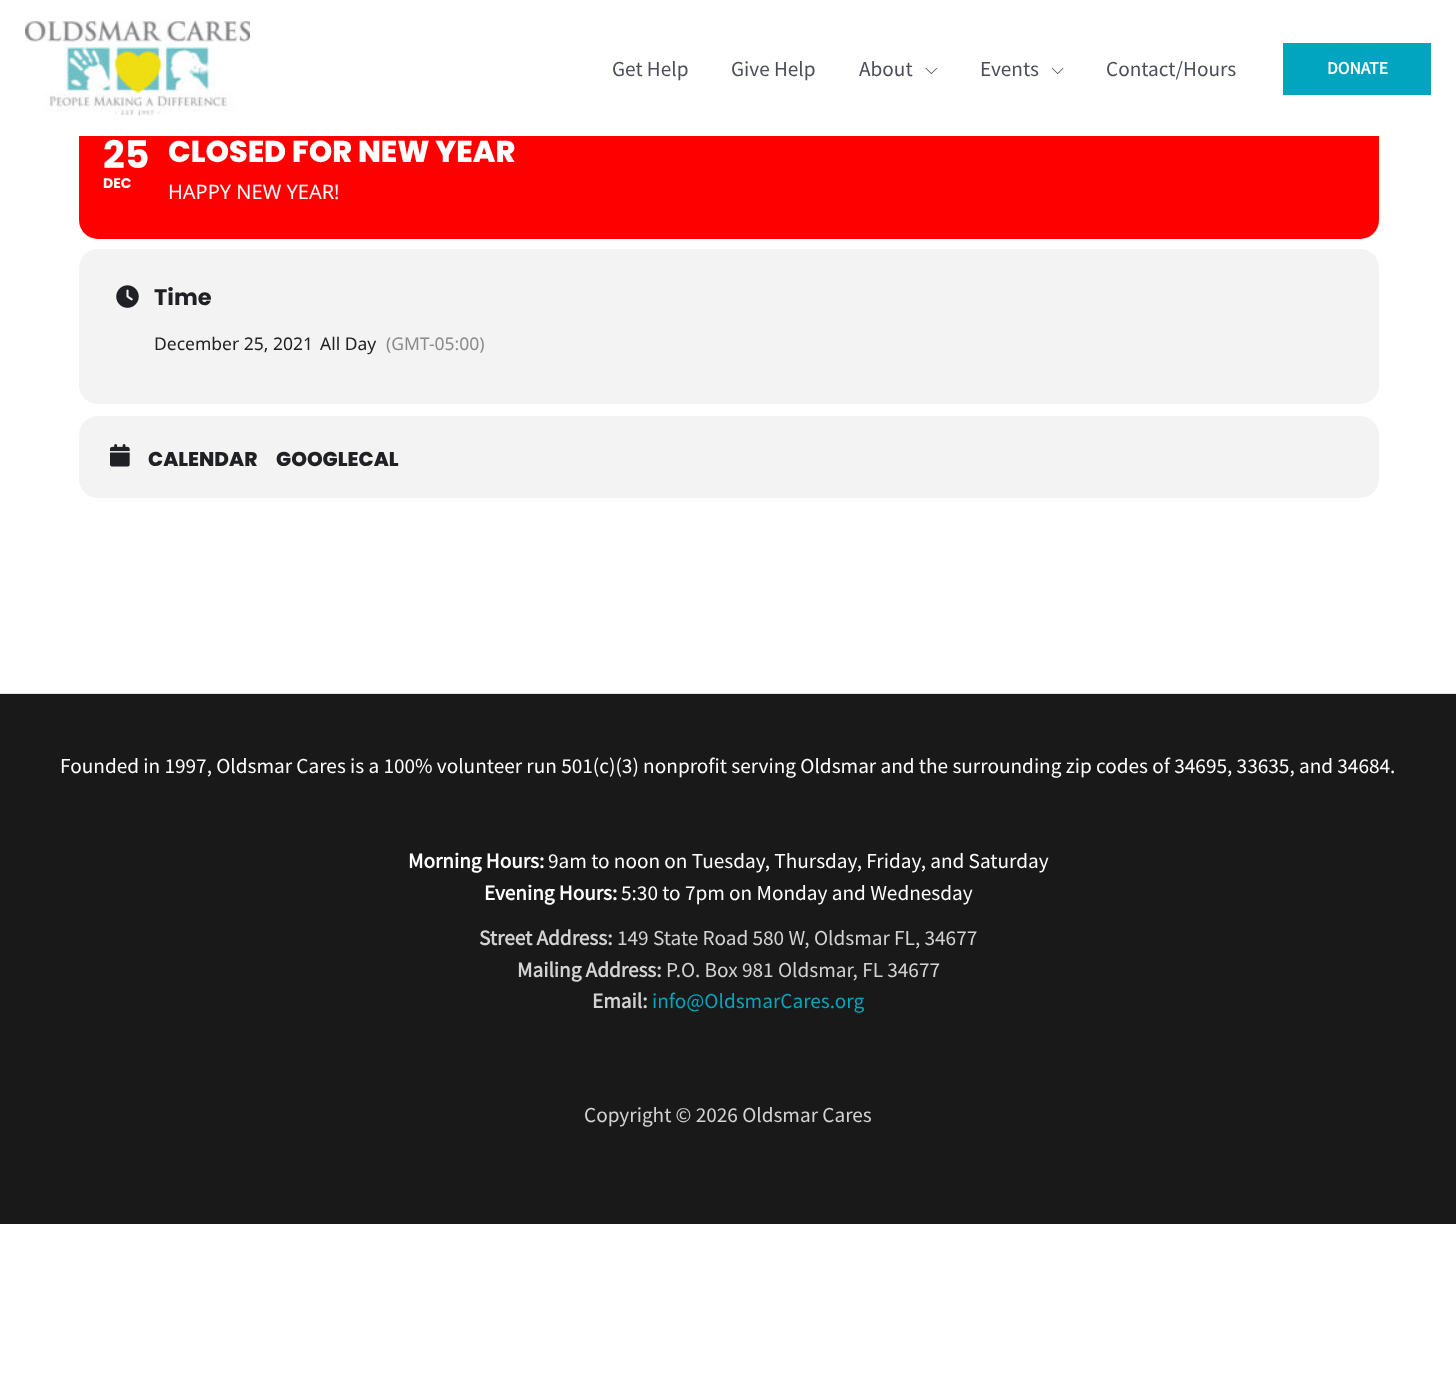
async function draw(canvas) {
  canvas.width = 1456;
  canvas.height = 1389;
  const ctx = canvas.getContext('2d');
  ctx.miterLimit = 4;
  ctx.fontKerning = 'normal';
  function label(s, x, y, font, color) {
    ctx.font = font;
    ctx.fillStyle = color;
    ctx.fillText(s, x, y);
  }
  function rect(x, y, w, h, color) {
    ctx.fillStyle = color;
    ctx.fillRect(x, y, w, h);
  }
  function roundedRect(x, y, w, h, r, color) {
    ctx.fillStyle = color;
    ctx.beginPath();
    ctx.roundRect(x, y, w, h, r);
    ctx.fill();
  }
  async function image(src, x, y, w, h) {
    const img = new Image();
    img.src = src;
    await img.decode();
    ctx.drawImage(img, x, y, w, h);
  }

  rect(0, 0, 1456, 1389, '#fff');
  roundedRect(79, 109, 1300, 130, 19, '#f00');
  rect(79, 109, 1300, 27, '#fff');
  await image('assets/img1.png', 25, 21, 225, 94);
  label('Get Help', 612, 76, '21.25px Source Sans Pro', '#4b4f58');
  label('Give Help', 731, 76, '21.25px Source Sans Pro', '#4b4f58');
  label('About', 859, 76, '21.25px Source Sans Pro', '#4b4f58');
  await image('assets/img2.png', 925, 67, 13, 7);
  label('Events', 980, 76, '21.25px Source Sans Pro', '#4b4f58');
  await image('assets/img3.png', 1051, 67, 13, 7);
  label('Contact/Hours', 1106, 76, '21.25px Source Sans Pro', '#4b4f58');
  rect(1283, 43, 148, 52, '#02a5c0');
  label('DONATE', 1327, 74, 'bold 17.5px Source Sans Pro', '#fff');
  label('25', 103, 168, 'bold 38px Poppins', '#fff');
  label('DEC', 103, 188, 'bold 14px Poppins', '#fff');
  label('CLOSED FOR NEW YEAR', 168, 162, '800 30px Poppins', '#fff');
  label('HAPPY NEW YEAR!', 168, 199, '20px Noto Sans', '#fff');
  roundedRect(79, 249, 1300, 155, 19, '#f3f3f3');
  await image('assets/img4.png', 116, 285, 23, 23);
  label('Time', 154, 305, 'bold 22.5px Poppins', '#202124');
  label('December 25, 2021', 154, 350, '17.5px Noto Sans', '#202124');
  label('All Day', 320, 350, '17.5px Noto Sans', '#202124');
  label('(GMT-05:00)', 386, 350, '17.5px Noto Sans', '#8a8a8c');
  roundedRect(79, 416, 1300, 82, 19, '#f3f3f3');
  await image('assets/img5.png', 110, 444, 20, 23);
  label('CALENDAR', 148, 466, '800 20px Poppins', '#202124');
  label('GOOGLECAL', 276, 466, '800 20px Poppins', '#202124');
  rect(0, 694, 1456, 530, '#191919');
  rect(0, 693, 1456, 1, '#e6e6e6');
  label('Founded in 1997, Oldsmar Cares is a 100% volunteer run 501(c)(3) nonprofit serving Oldsmar and the surrounding zip codes of 34695, 33635, and 34684.', 60, 773, '21.25px Source Sans Pro', '#fff');
  label('Morning Hours:', 408, 868, 'bold 21.25px Source Sans Pro', '#fff');
  label('9am to noon on Tuesday, Thursday, Friday, and Saturday', 548, 868, '21.25px Source Sans Pro', '#fff');
  label('Evening Hours:', 484, 900, 'bold 21.25px Source Sans Pro', '#fff');
  label('5:30 to 7pm on Monday and Wednesday', 621, 900, '21.25px Source Sans Pro', '#fff');
  label('Street Address:', 479, 945, 'bold 21.25px Source Sans Pro', '#d3d3d3');
  label('149 State Road 580 W, Oldsmar FL, 34677', 617, 945, '21.25px Source Sans Pro', '#d3d3d3');
  label('Mailing Address:', 517, 977, 'bold 21.25px Source Sans Pro', '#d3d3d3');
  label('P.O. Box 981 Oldsmar, FL 34677', 666, 977, '21.25px Source Sans Pro', '#d3d3d3');
  label('Email:', 592, 1008, 'bold 21.25px Source Sans Pro', '#d3d3d3');
  label('info@OldsmarCares.org', 652, 1008, '21.25px Source Sans Pro', '#02a5c0');
  label('Copyright © 2026 Oldsmar Cares', 584, 1122, '21.25px Source Sans Pro', '#d3d3d3');
}

draw(document.querySelector('canvas'));
